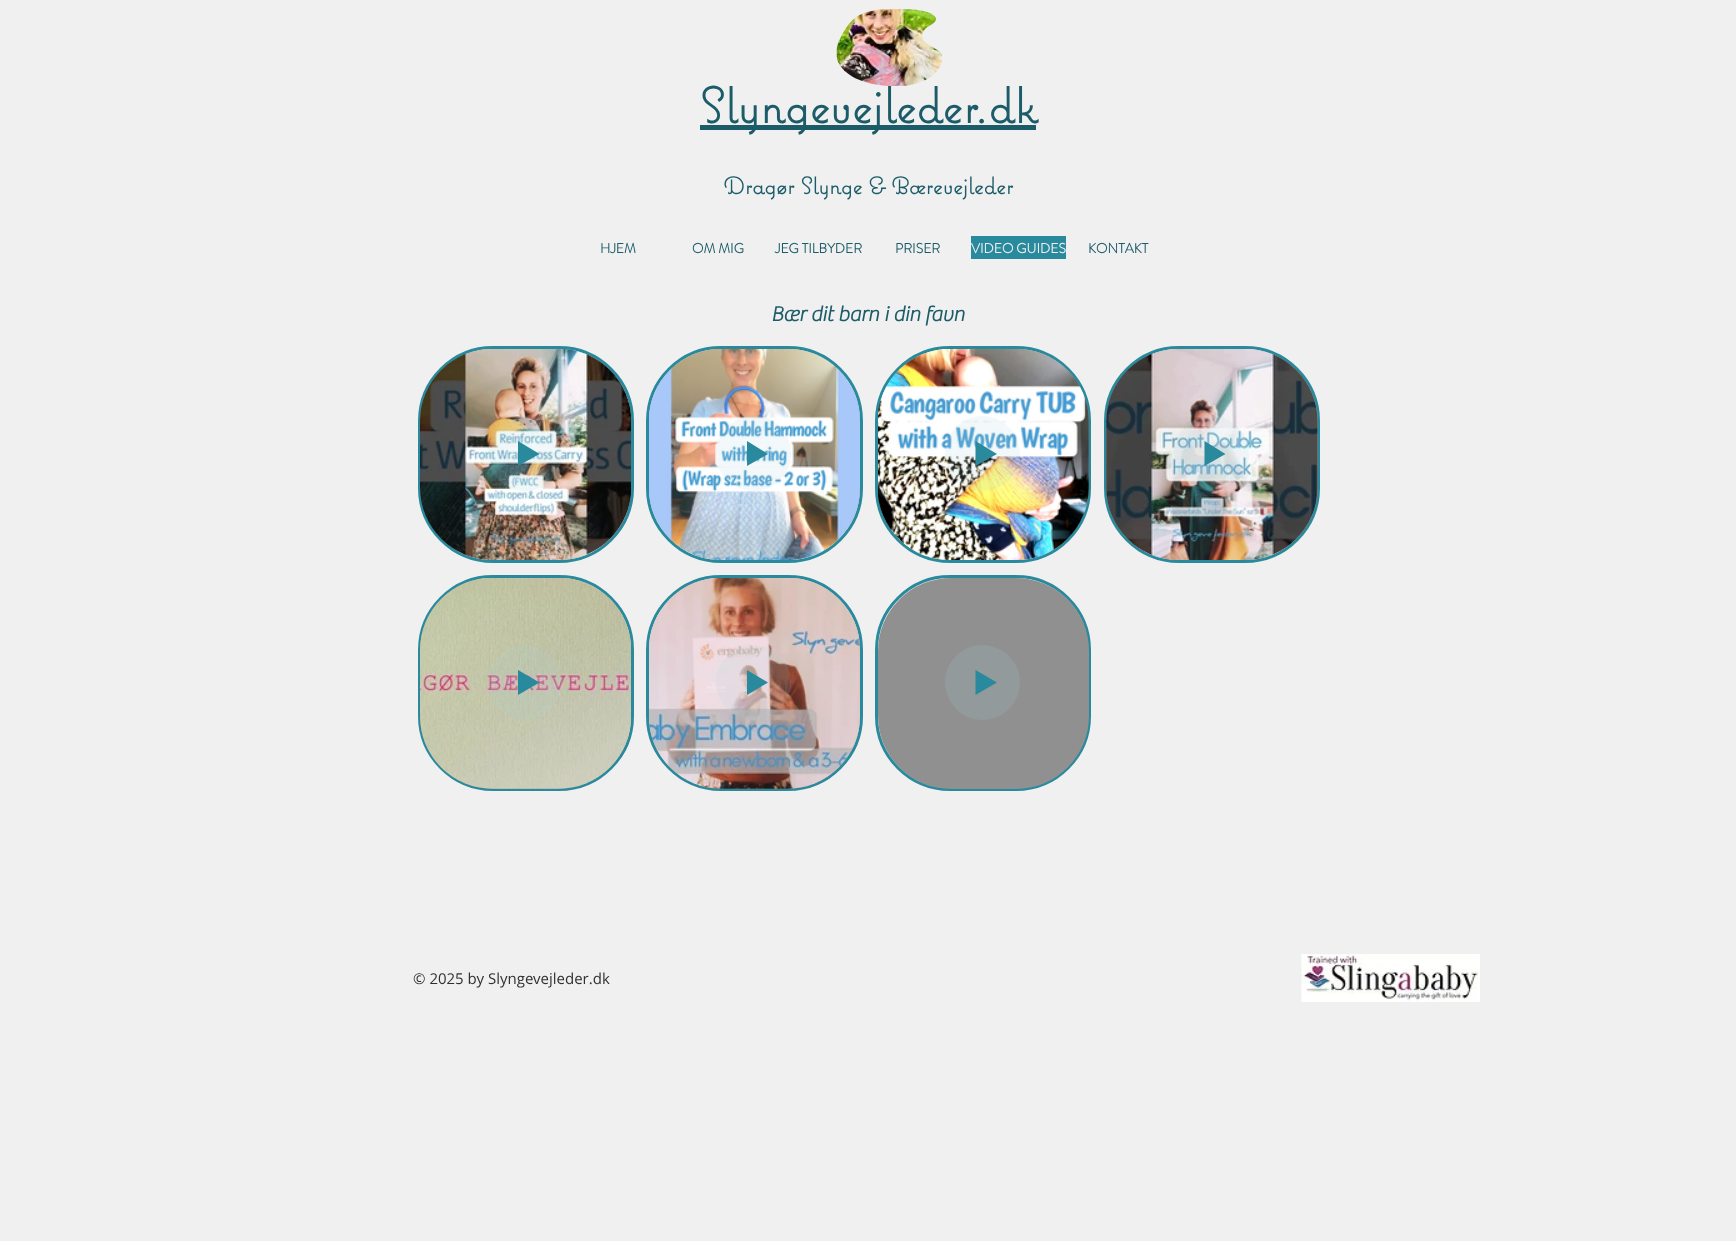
async function draw(canvas) {
  canvas.width = 1736;
  canvas.height = 1241;
  const ctx = canvas.getContext('2d');
  ctx.miterLimit = 4;
  ctx.fontKerning = 'normal';
  function label(s, x, y, font, color) {
    ctx.font = font;
    ctx.fillStyle = color;
    ctx.fillText(s, x, y);
  }
  function rect(x, y, w, h, color) {
    ctx.fillStyle = color;
    ctx.fillRect(x, y, w, h);
  }
  function roundedRect(x, y, w, h, r, color) {
    ctx.fillStyle = color;
    ctx.beginPath();
    ctx.roundRect(x, y, w, h, r);
    ctx.fill();
  }
  async function image(src, x, y, w, h) {
    const img = new Image();
    img.src = src;
    await img.decode();
    ctx.drawImage(img, x, y, w, h);
  }
  let path;

  rect(0, 0, 1736, 1241, '#f0f0f0');
  await image('assets/img1.png', 836, 9, 106, 77);
  rect(700, 125, 336, 5, '#1c5c69');
  label('Slyngevejleder.dk', 700, 123, 'bold 50px "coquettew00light"', '#1c5c69');
  label('Dragør Slynge & Bærevejleder', 724, 194, 'bold 23.75px "coquettew00light"', '#1c5c69');
  label('HJEM', 600, 253, 'bold 13.75px "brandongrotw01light"', '#1c5c69');
  label('OM MIG', 692, 253, 'bold 13.75px "brandongrotw01light"', '#1c5c69');
  label('JEG TILBYDER', 775, 253, 'bold 13.75px "brandongrotw01light"', '#1c5c69');
  label('PRISER', 895, 253, 'bold 13.75px "brandongrotw01light"', '#1c5c69');
  rect(971, 236, 95, 23, '#2a8a9d');
  label('VIDEO GUIDES', 971, 253, 'bold 13.75px "brandongrotw01light"', '#f0f0f0');
  label('KONTAKT', 1088, 253, 'bold 13.75px "brandongrotw01light"', '#1c5c69');
  label('Bær dit barn i din favn', 771, 321, 'bold 21.25px "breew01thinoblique"', '#1c5c69');
  ctx.beginPath();
  ctx.roundRect(419.5, 347.5, 213, 214, 73.5);
  ctx.strokeStyle = '#2a8a9d';
  ctx.lineWidth = 3;
  ctx.stroke();
  roundedRect(420, 349, 211, 211, 73, '#909090');
  await image('assets/img2.png', 420, 349, 211, 211);
  ctx.fillStyle = '#a8d5de24';
  path = new Path2D('M525 416C546 416 562 433 562 454C562 474 546 491 525 491C504 491 488 474 488 454C488 433 504 416 525 416Z');
  ctx.fill(path, 'evenodd');
  ctx.fillStyle = '#2a8a9d';
  path = new Path2D('M539.5 454L518 466V441Z');
  ctx.fill(path);
  ctx.beginPath();
  ctx.roundRect(647.5, 347.5, 214, 214, 73.5);
  ctx.stroke();
  roundedRect(649, 349, 211, 211, 73, '#909090');
  await image('assets/img3.png', 649, 349, 211, 211);
  ctx.fillStyle = '#a8d5de24';
  path = new Path2D('M754 416C774 416 791 433 791 454C791 474 774 491 754 491C733 491 716 474 716 454C716 433 733 416 754 416Z');
  ctx.fill(path, 'evenodd');
  ctx.fillStyle = '#2a8a9d';
  path = new Path2D('M768 454L747 466V441Z');
  ctx.fill(path);
  ctx.beginPath();
  ctx.roundRect(876.5, 347.5, 213, 214, 73.5);
  ctx.stroke();
  roundedRect(878, 349, 211, 211, 73, '#909090');
  await image('assets/img4.png', 878, 349, 211, 211);
  ctx.fillStyle = '#a8d5de24';
  path = new Path2D('M982 416C1003 416 1020 433 1020 454C1020 474 1003 491 982 491C962 491 945 474 945 454C945 433 962 416 982 416Z');
  ctx.fill(path, 'evenodd');
  ctx.fillStyle = '#2a8a9d';
  path = new Path2D('M997 454L975.5 466V441Z');
  ctx.fill(path);
  ctx.beginPath();
  ctx.roundRect(1105.5, 347.5, 213, 214, 73.5);
  ctx.stroke();
  roundedRect(1106, 349, 212, 211, 73, '#909090');
  await image('assets/img5.png', 1106, 349, 212, 211);
  ctx.fillStyle = '#a8d5de24';
  path = new Path2D('M1211 416C1232 416 1249 433 1249 454C1249 474 1232 491 1211 491C1190 491 1174 474 1174 454C1174 433 1190 416 1211 416Z');
  ctx.fill(path, 'evenodd');
  ctx.fillStyle = '#2a8a9d';
  path = new Path2D('M1225.5 454L1204.5 466V441Z');
  ctx.fill(path);
  ctx.beginPath();
  ctx.roundRect(419.5, 576.5, 213, 213, 73.5);
  ctx.stroke();
  roundedRect(420, 578, 211, 211, 73, '#909090');
  await image('assets/img6.png', 420, 578, 211, 211);
  ctx.fillStyle = '#a8d5de24';
  path = new Path2D('M525 645C546 645 562 662 562 682C562 703 546 720 525 720C504 720 488 703 488 682C488 662 504 645 525 645Z');
  ctx.fill(path, 'evenodd');
  ctx.fillStyle = '#2a8a9d';
  path = new Path2D('M539.5 682.5L518 695V670Z');
  ctx.fill(path);
  ctx.beginPath();
  ctx.roundRect(647.5, 576.5, 214, 213, 73.5);
  ctx.stroke();
  roundedRect(649, 578, 211, 211, 73, '#909090');
  await image('assets/img7.png', 649, 578, 211, 211);
  ctx.fillStyle = '#a8d5de24';
  path = new Path2D('M754 645C774 645 791 662 791 682C791 703 774 720 754 720C733 720 716 703 716 682C716 662 733 645 754 645Z');
  ctx.fill(path, 'evenodd');
  ctx.fillStyle = '#2a8a9d';
  path = new Path2D('M768 682.5L747 695V670Z');
  ctx.fill(path);
  ctx.beginPath();
  ctx.roundRect(876.5, 576.5, 213, 213, 73.5);
  ctx.stroke();
  roundedRect(878, 578, 211, 211, 73, '#909090');
  ctx.fillStyle = '#939a9b';
  path = new Path2D('M982 645C1003 645 1020 662 1020 682C1020 703 1003 720 982 720C962 720 945 703 945 682C945 662 962 645 982 645Z');
  ctx.fill(path, 'evenodd');
  ctx.fillStyle = '#2a8a9d';
  path = new Path2D('M997 682.5L975.5 695V670Z');
  ctx.fill(path);
  label('© 2025 by Slyngevejleder.dk', 413, 984, '15px Open Sans', '#303030');
  await image('assets/img8.png', 1301, 954, 179, 48);
}

draw(document.querySelector('canvas'));
